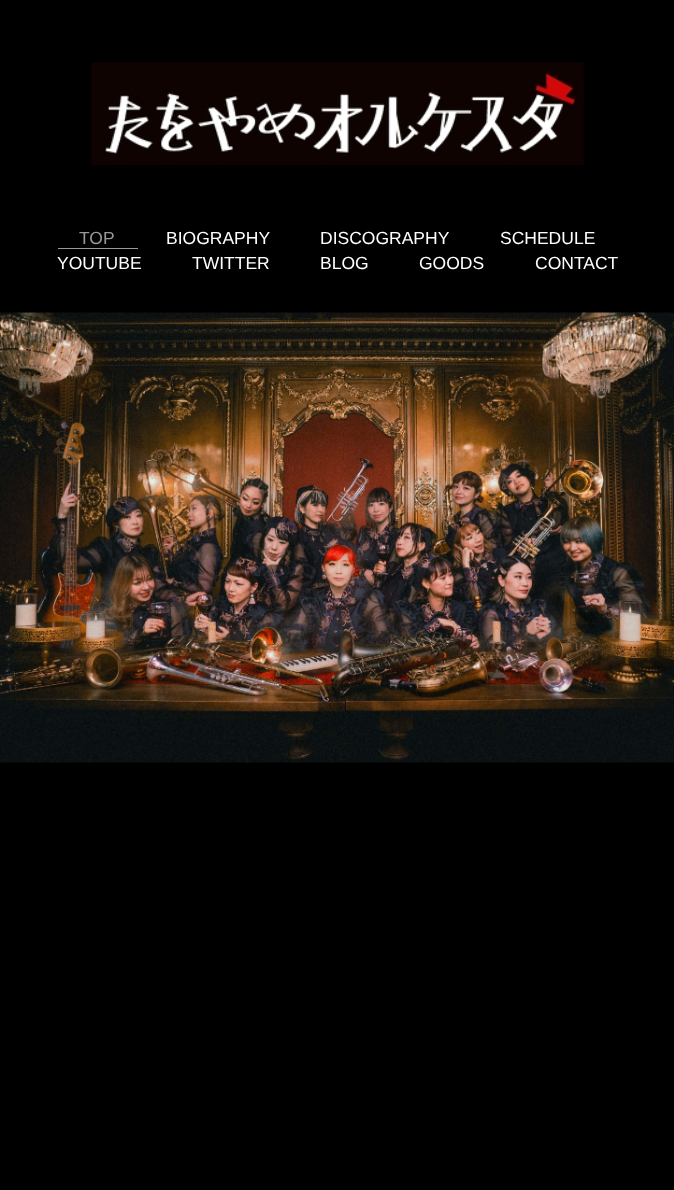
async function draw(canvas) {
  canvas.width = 674;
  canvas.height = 1190;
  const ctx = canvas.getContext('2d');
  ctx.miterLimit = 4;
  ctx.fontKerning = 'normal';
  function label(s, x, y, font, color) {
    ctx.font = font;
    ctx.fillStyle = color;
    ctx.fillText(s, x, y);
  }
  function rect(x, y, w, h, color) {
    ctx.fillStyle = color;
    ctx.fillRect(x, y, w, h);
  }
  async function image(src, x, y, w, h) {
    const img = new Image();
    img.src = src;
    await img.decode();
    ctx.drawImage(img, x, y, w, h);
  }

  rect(0, 0, 674, 1190, '#000');
  await image('assets/img1.png', 91, 62, 493, 103);
  label('TOP', 79, 244, '17.5px Liberation Sans', '#999');
  rect(58, 248, 80, 1, '#999');
  label('BIOGRAPHY', 166, 244, '17.5px Liberation Sans', '#fff');
  label('DISCOGRAPHY', 320, 244, '17.5px Liberation Sans', '#fff');
  label('SCHEDULE', 500, 244, '17.5px Liberation Sans', '#fff');
  label('YOUTUBE', 57, 269, '17.5px Liberation Sans', '#fff');
  label('TWITTER', 192, 269, '17.5px Liberation Sans', '#fff');
  label('BLOG', 320, 269, '17.5px Liberation Sans', '#fff');
  label('GOODS', 419, 269, '17.5px Liberation Sans', '#fff');
  label('CONTACT', 535, 269, '17.5px Liberation Sans', '#fff');
  await image('assets/img2.png', 0, 312, 674, 451);
}

draw(document.querySelector('canvas'));
